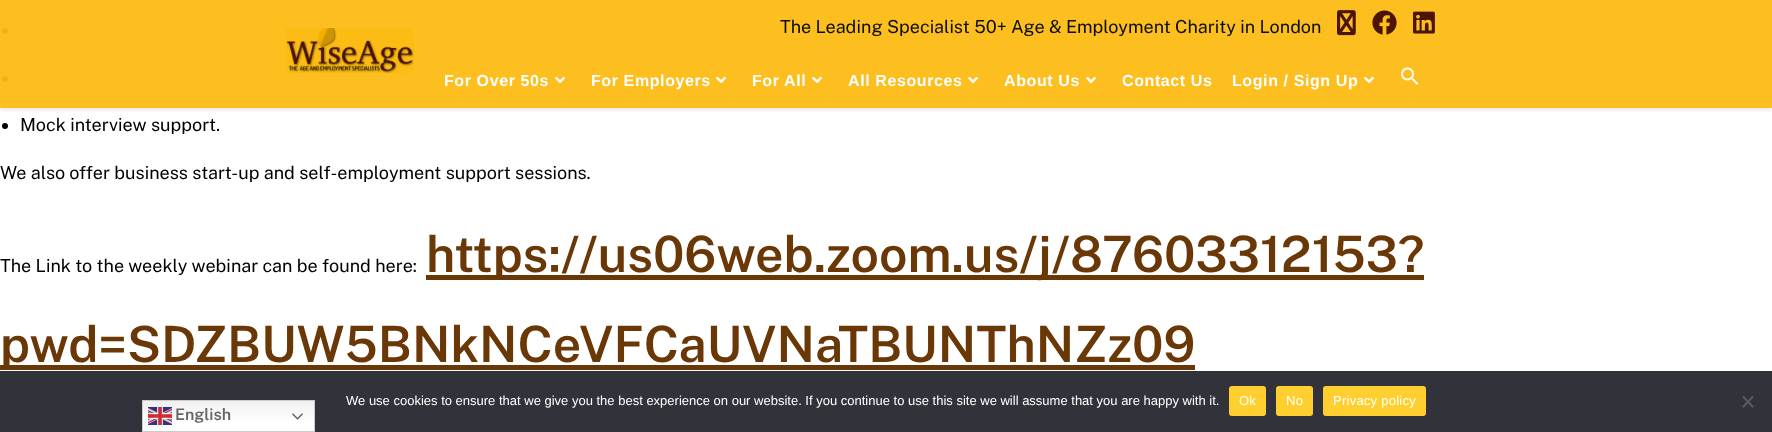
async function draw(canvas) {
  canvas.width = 1772;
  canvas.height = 432;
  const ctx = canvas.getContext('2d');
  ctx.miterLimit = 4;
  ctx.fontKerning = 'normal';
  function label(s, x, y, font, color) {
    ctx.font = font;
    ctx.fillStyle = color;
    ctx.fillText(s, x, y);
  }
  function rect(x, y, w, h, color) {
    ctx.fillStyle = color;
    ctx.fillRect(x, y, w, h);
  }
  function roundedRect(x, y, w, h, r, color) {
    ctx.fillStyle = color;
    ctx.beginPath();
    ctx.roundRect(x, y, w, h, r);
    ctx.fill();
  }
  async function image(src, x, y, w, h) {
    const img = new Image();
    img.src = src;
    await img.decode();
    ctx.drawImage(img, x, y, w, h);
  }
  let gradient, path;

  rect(0, 0, 1772, 432, '#fff');
  rect(0, 0, 1772, 108, '#fdbf1f');
  ctx.fillStyle = '#f0b312';
  ctx.beginPath();
  ctx.arc(5, 31, 3, 0, 2 * Math.PI);
  ctx.fill();
  ctx.beginPath();
  ctx.arc(5, 79, 3, 0, 2 * Math.PI);
  ctx.fill();
  ctx.save();
  ctx.beginPath();
  ctx.rect(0, 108, 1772, 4);
  ctx.clip();
  ctx.fillStyle = '#0d0d0d1a';
  ctx.filter = 'blur(2.5px)';
  ctx.beginPath();
  ctx.rect(0, 2, 1772, 108);
  ctx.fill();
  ctx.filter = 'none';
  ctx.restore();
  await image('assets/img1.png', 286, 28, 128, 45);
  label('The Leading Specialist 50+ Age & Employment Charity in London', 780, 33, '18px Public Sans', '#0d0d0d');
  await image('assets/img2.png', 1337, 10, 19, 26);
  await image('assets/img3.png', 1372, 10, 25, 25);
  await image('assets/img4.png', 1413, 11, 22, 23);
  ctx.letterSpacing = '0.6px';
  label('For Over 50s', 444, 86, 'bold 16px Liberation Sans', '#fff');
  await image('assets/img5.png', 555, 76, 10, 8);
  label('For Employers', 591, 86, 'bold 16px Liberation Sans', '#fff');
  await image('assets/img5.png', 716, 76, 10, 8);
  label('For All', 752, 86, 'bold 16px Liberation Sans', '#fff');
  await image('assets/img5.png', 812, 76, 10, 8);
  label('All Resources', 848, 86, 'bold 16px Liberation Sans', '#fff');
  await image('assets/img5.png', 968, 76, 10, 8);
  label('About Us', 1004, 86, 'bold 16px Liberation Sans', '#fff');
  await image('assets/img5.png', 1086, 76, 10, 8);
  label('Contact Us', 1122, 86, 'bold 16px Liberation Sans', '#fff');
  label('Login / Sign Up', 1232, 86, 'bold 16px Liberation Sans', '#fff');
  await image('assets/img5.png', 1364, 76, 10, 8);
  await image('assets/img6.png', 1401, 67, 18, 18);
  ctx.fillStyle = '#000';
  ctx.beginPath();
  ctx.arc(5, 126, 3, 0, 2 * Math.PI);
  ctx.fill();
  ctx.letterSpacing = '0px';
  label('Mock interview support.', 20, 131, '18px Public Sans', '#000');
  label('We also offer business start-up and self-employment support sessions.', 0, 179, '18px Public Sans', '#000');
  label('The Link to the weekly webinar can be found here:', 0, 272, '18px Public Sans', '#000');
  rect(426, 275, 998, 5, '#6a3707');
  label('https://us06web.zoom.us/j/87603312153?', 426, 272, '600 50px Public Sans', '#6a3707');
  rect(0, 365, 1195, 5, '#6a3707');
  label('pwd=SDZBUW5BNkNCeVFCaUVNaTBUNThNZz09', 0, 362, '600 50px Public Sans', '#6a3707');
  rect(0, 371, 1772, 61, '#32323a');
  label('We use cookies to ensure that we give you the best experience on our website. If you continue to use this site we will assume that you are happy with it.', 346, 405, '13px Liberation Sans', '#fff');
  roundedRect(1229, 386, 37, 30, 3, '#ffcf2f');
  ctx.letterSpacing = '0.25px';
  label('Ok', 1239, 405, '13px Liberation Sans', '#fff');
  roundedRect(1276, 386, 37, 30, 3, '#ffcf2f');
  label('No', 1286, 405, '13px Liberation Sans', '#fff');
  roundedRect(1323, 386, 103, 30, 3, '#ffcf2f');
  label('Privacy policy', 1333, 405, '13px Liberation Sans', '#fff');
  ctx.fillStyle = '#59595d';
  path = new Path2D('M1752.5 395.5L1754 397L1743.5 408L1742 406.5Z');
  ctx.fill(path);
  path = new Path2D('M1742 397L1743.5 395.5L1754 406.5L1752.5 408Z');
  ctx.fill(path);
  gradient = ctx.createLinearGradient(229, 400, 229, 432);
  gradient.addColorStop(0, '#efefef');
  gradient.addColorStop(0.7, '#fff');
  ctx.fillStyle = gradient;
  ctx.fillRect(143, 401, 171, 30);
  ctx.strokeStyle = '#ccc';
  ctx.strokeRect(142.5, 400.5, 172, 31);
  await image('assets/img7.png', 148, 407, 24, 18);
  ctx.letterSpacing = '0px';
  label('English', 175, 420, '600 16px Public Sans', '#666');
  await image('assets/img8.png', 292, 413, 11, 7);
}

draw(document.querySelector('canvas'));
